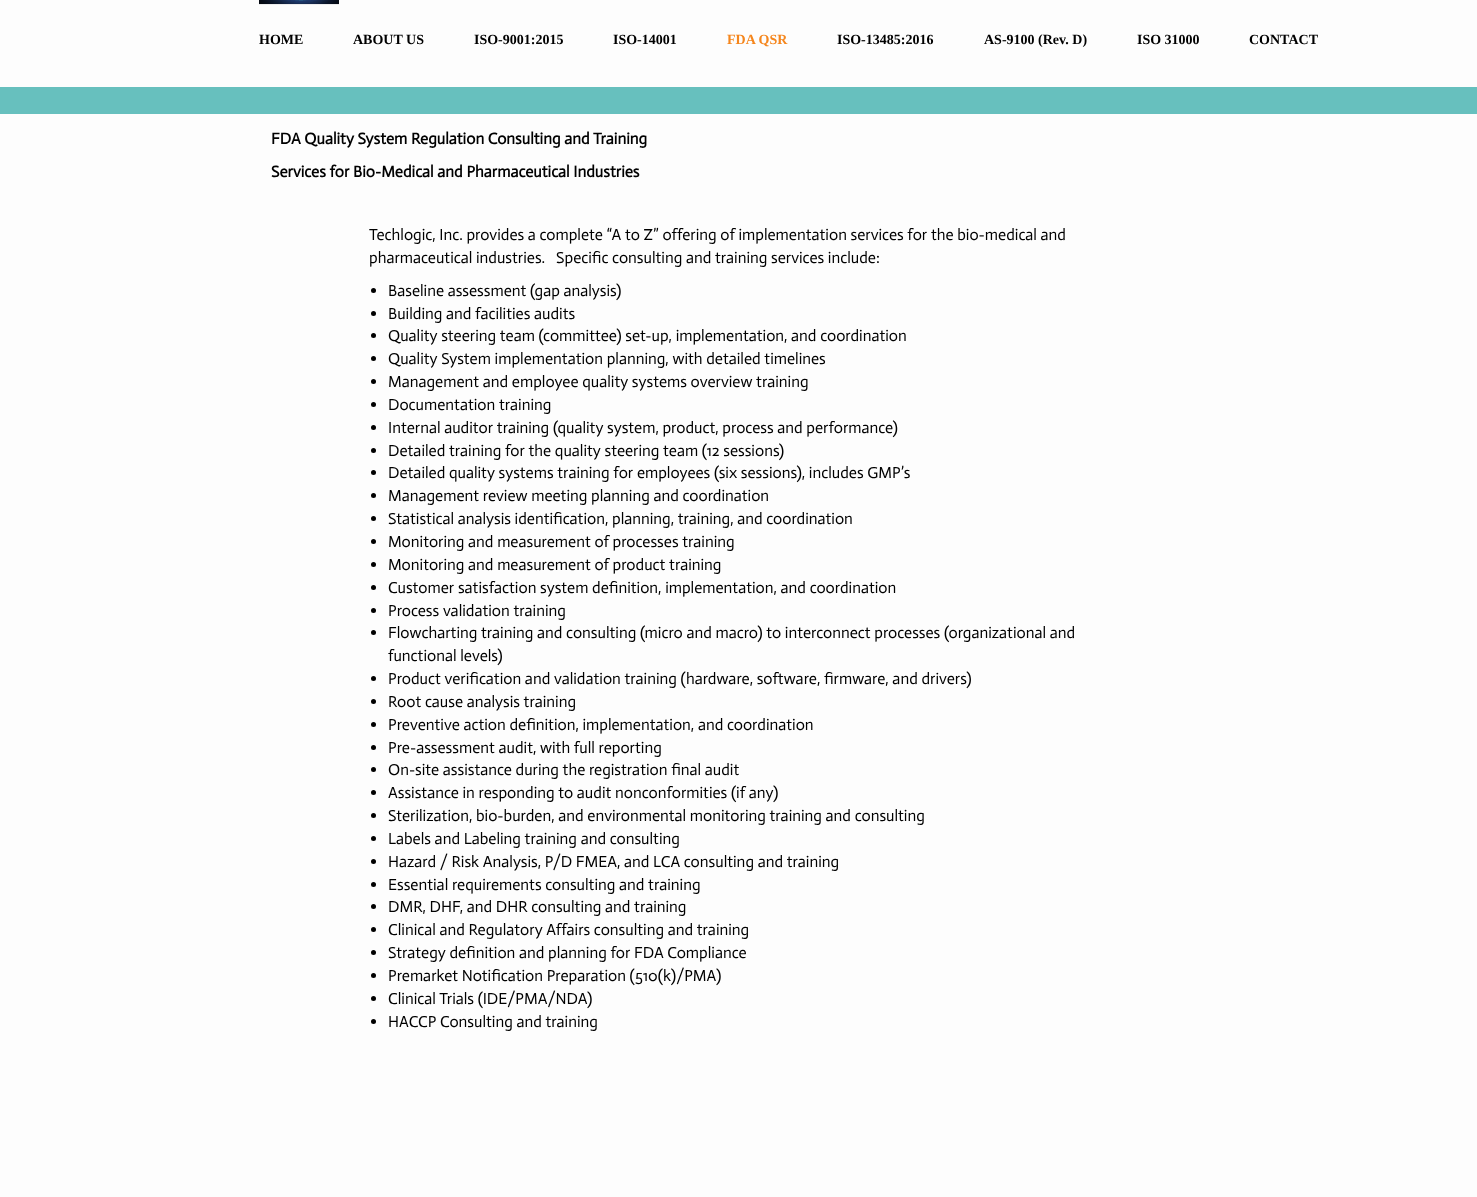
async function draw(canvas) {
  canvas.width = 1477;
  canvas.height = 1197;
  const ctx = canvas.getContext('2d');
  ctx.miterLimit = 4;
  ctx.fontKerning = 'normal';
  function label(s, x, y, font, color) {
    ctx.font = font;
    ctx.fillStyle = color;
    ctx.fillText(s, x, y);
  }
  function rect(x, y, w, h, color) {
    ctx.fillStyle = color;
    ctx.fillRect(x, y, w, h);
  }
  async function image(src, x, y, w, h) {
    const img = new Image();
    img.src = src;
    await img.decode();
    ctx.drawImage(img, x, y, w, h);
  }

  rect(0, 0, 1477, 1197, '#fdfdfd');
  rect(0, 87, 1477, 27, '#67c0be');
  await image('assets/img1.png', 259, 0, 80, 5);
  label('HOME', 259, 44, 'bold 14px Liberation Serif', '#000');
  label('ABOUT US', 353, 44, 'bold 14px Liberation Serif', '#000');
  label('ISO-9001:2015', 474, 44, 'bold 14px Liberation Serif', '#000');
  label('ISO-14001', 613, 44, 'bold 14px Liberation Serif', '#000');
  label('FDA QSR', 727, 44, 'bold 14px Liberation Serif', '#f5861d');
  label('ISO-13485:2016', 837, 44, 'bold 14px Liberation Serif', '#000');
  label('AS-9100 (Rev. D)', 984, 44, 'bold 14px Liberation Serif', '#000');
  label('ISO 31000', 1137, 44, 'bold 14px Liberation Serif', '#000');
  label('CONTACT', 1249, 44, 'bold 14px Liberation Serif', '#000');
  label('FDA Quality System Regulation Consulting and Training', 271, 144, 'bold 16px Actor', '#000');
  label('Services for Bio-Medical and Pharmaceutical Industries', 271, 177, 'bold 16px Actor', '#000');
  label('Techlogic, Inc. provides a complete “A to Z” offering of implementation services for the bio-medical and', 369, 240, '16px Actor', '#000');
  label('pharmaceutical industries.   Specific consulting and training services include:', 369, 263, '16px Actor', '#000');
  ctx.beginPath();
  ctx.arc(373.5, 290.5, 2.5, 0, 2 * Math.PI);
  ctx.fill();
  label('Baseline assessment (gap analysis)', 388, 296, '16px Actor', '#000');
  ctx.beginPath();
  ctx.arc(373.5, 313.5, 2.5, 0, 2 * Math.PI);
  ctx.fill();
  label('Building and facilities audits', 388, 319, '16px Actor', '#000');
  ctx.beginPath();
  ctx.arc(373.5, 335.5, 2.5, 0, 2 * Math.PI);
  ctx.fill();
  label('Quality steering team (committee) set-up, implementation, and coordination', 388, 341, '16px Actor', '#000');
  ctx.beginPath();
  ctx.arc(373.5, 358.5, 2.5, 0, 2 * Math.PI);
  ctx.fill();
  label('Quality System implementation planning, with detailed timelines', 388, 364, '16px Actor', '#000');
  ctx.beginPath();
  ctx.arc(373.5, 381.5, 2.5, 0, 2 * Math.PI);
  ctx.fill();
  label('Management and employee quality systems overview training', 388, 387, '16px Actor', '#000');
  ctx.beginPath();
  ctx.arc(373.5, 404.5, 2.5, 0, 2 * Math.PI);
  ctx.fill();
  label('Documentation training', 388, 410, '16px Actor', '#000');
  ctx.beginPath();
  ctx.arc(373.5, 427.5, 2.5, 0, 2 * Math.PI);
  ctx.fill();
  label('Internal auditor training (quality system, product, process and performance)', 388, 433, '16px Actor', '#000');
  ctx.beginPath();
  ctx.arc(373.5, 450.5, 2.5, 0, 2 * Math.PI);
  ctx.fill();
  label('Detailed training for the quality steering team (12 sessions)', 388, 456, '16px Actor', '#000');
  ctx.beginPath();
  ctx.arc(373.5, 472.5, 2.5, 0, 2 * Math.PI);
  ctx.fill();
  label('Detailed quality systems training for employees (six sessions), includes GMP’s', 388, 478, '16px Actor', '#000');
  ctx.beginPath();
  ctx.arc(373.5, 495.5, 2.5, 0, 2 * Math.PI);
  ctx.fill();
  label('Management review meeting planning and coordination', 388, 501, '16px Actor', '#000');
  ctx.beginPath();
  ctx.arc(373.5, 518.5, 2.5, 0, 2 * Math.PI);
  ctx.fill();
  label('Statistical analysis identification, planning, training, and coordination', 388, 524, '16px Actor', '#000');
  ctx.beginPath();
  ctx.arc(373.5, 541.5, 2.5, 0, 2 * Math.PI);
  ctx.fill();
  label('Monitoring and measurement of processes training', 388, 547, '16px Actor', '#000');
  ctx.beginPath();
  ctx.arc(373.5, 564.5, 2.5, 0, 2 * Math.PI);
  ctx.fill();
  label('Monitoring and measurement of product training', 388, 570, '16px Actor', '#000');
  ctx.beginPath();
  ctx.arc(373.5, 587.5, 2.5, 0, 2 * Math.PI);
  ctx.fill();
  label('Customer satisfaction system definition, implementation, and coordination', 388, 593, '16px Actor', '#000');
  ctx.beginPath();
  ctx.arc(373.5, 610.5, 2.5, 0, 2 * Math.PI);
  ctx.fill();
  label('Process validation training', 388, 616, '16px Actor', '#000');
  ctx.beginPath();
  ctx.arc(373.5, 632.5, 2.5, 0, 2 * Math.PI);
  ctx.fill();
  label('Flowcharting training and consulting (micro and macro) to interconnect processes (organizational and', 388, 638, '16px Actor', '#000');
  label('functional levels)', 388, 661, '16px Actor', '#000');
  ctx.beginPath();
  ctx.arc(373.5, 678.5, 2.5, 0, 2 * Math.PI);
  ctx.fill();
  label('Product verification and validation training (hardware, software, firmware, and drivers)', 388, 684, '16px Actor', '#000');
  ctx.beginPath();
  ctx.arc(373.5, 701.5, 2.5, 0, 2 * Math.PI);
  ctx.fill();
  label('Root cause analysis training', 388, 707, '16px Actor', '#000');
  ctx.beginPath();
  ctx.arc(373.5, 724.5, 2.5, 0, 2 * Math.PI);
  ctx.fill();
  label('Preventive action definition, implementation, and coordination', 388, 730, '16px Actor', '#000');
  ctx.beginPath();
  ctx.arc(373.5, 747.5, 2.5, 0, 2 * Math.PI);
  ctx.fill();
  label('Pre-assessment audit, with full reporting', 388, 753, '16px Actor', '#000');
  ctx.beginPath();
  ctx.arc(373.5, 769.5, 2.5, 0, 2 * Math.PI);
  ctx.fill();
  label('On-site assistance during the registration final audit', 388, 775, '16px Actor', '#000');
  ctx.beginPath();
  ctx.arc(373.5, 792.5, 2.5, 0, 2 * Math.PI);
  ctx.fill();
  label('Assistance in responding to audit nonconformities (if any)', 388, 798, '16px Actor', '#000');
  ctx.beginPath();
  ctx.arc(373.5, 815.5, 2.5, 0, 2 * Math.PI);
  ctx.fill();
  label('Sterilization, bio-burden, and environmental monitoring training and consulting', 388, 821, '16px Actor', '#000');
  ctx.beginPath();
  ctx.arc(373.5, 838.5, 2.5, 0, 2 * Math.PI);
  ctx.fill();
  label('Labels and Labeling training and consulting', 388, 844, '16px Actor', '#000');
  ctx.beginPath();
  ctx.arc(373.5, 861.5, 2.5, 0, 2 * Math.PI);
  ctx.fill();
  label('Hazard / Risk Analysis, P/D FMEA, and LCA consulting and training', 388, 867, '16px Actor', '#000');
  ctx.beginPath();
  ctx.arc(373.5, 884.5, 2.5, 0, 2 * Math.PI);
  ctx.fill();
  label('Essential requirements consulting and training', 388, 890, '16px Actor', '#000');
  ctx.beginPath();
  ctx.arc(373.5, 906.5, 2.5, 0, 2 * Math.PI);
  ctx.fill();
  label('DMR, DHF, and DHR consulting and training', 388, 912, '16px Actor', '#000');
  ctx.beginPath();
  ctx.arc(373.5, 929.5, 2.5, 0, 2 * Math.PI);
  ctx.fill();
  label('Clinical and Regulatory Affairs consulting and training', 388, 935, '16px Actor', '#000');
  ctx.beginPath();
  ctx.arc(373.5, 952.5, 2.5, 0, 2 * Math.PI);
  ctx.fill();
  label('Strategy definition and planning for FDA Compliance', 388, 958, '16px Actor', '#000');
  ctx.beginPath();
  ctx.arc(373.5, 975.5, 2.5, 0, 2 * Math.PI);
  ctx.fill();
  label('Premarket Notification Preparation (510(k)/PMA)', 388, 981, '16px Actor', '#000');
  ctx.beginPath();
  ctx.arc(373.5, 998.5, 2.5, 0, 2 * Math.PI);
  ctx.fill();
  label('Clinical Trials (IDE/PMA/NDA)', 388, 1004, '16px Actor', '#000');
  ctx.beginPath();
  ctx.arc(373.5, 1021.5, 2.5, 0, 2 * Math.PI);
  ctx.fill();
  label('HACCP Consulting and training', 388, 1027, '16px Actor', '#000');
}

draw(document.querySelector('canvas'));
